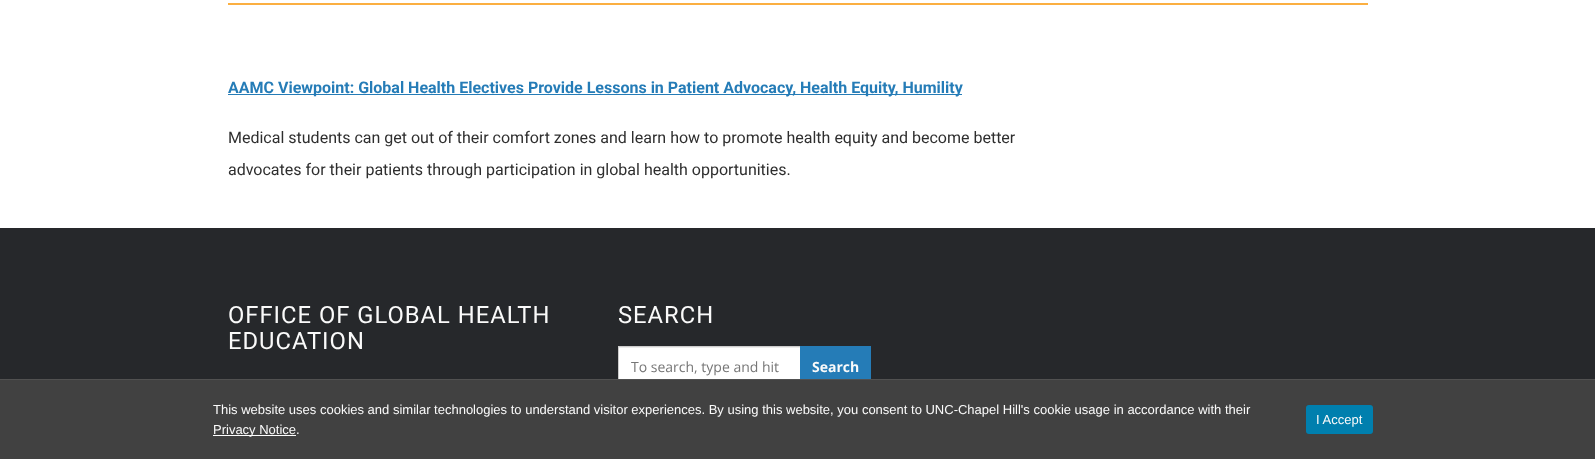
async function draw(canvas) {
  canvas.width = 1595;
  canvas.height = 459;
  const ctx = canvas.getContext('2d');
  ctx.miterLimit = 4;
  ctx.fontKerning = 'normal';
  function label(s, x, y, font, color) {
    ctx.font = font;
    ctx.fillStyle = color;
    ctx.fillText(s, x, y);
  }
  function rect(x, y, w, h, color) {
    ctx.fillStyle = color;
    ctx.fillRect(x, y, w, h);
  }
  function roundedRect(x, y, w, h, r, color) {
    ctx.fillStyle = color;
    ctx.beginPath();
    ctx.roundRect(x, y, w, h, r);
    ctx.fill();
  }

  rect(0, 0, 1595, 459, '#fff');
  rect(228, 3, 1140, 2, '#fbaf41');
  rect(228, 94, 734, 1, '#257cb7');
  label('AAMC Viewpoint: Global Health Electives Provide Lessons in Patient Advocacy, Health Equity, Humility', 228, 93, 'bold 16px Roboto', '#257cb7');
  label('Medical students can get out of their comfort zones and learn how to promote health equity and become better', 228, 143, '16px Roboto', '#2e2e2e');
  label('advocates for their patients through participation in global health opportunities.', 228, 175, '16px Roboto', '#2e2e2e');
  rect(0, 228, 1595, 151, '#26282b');
  ctx.letterSpacing = '1px';
  label('OFFICE OF GLOBAL HEALTH', 228, 323, '23.75px Roboto', '#fafafa');
  label('EDUCATION', 228, 349, '23.75px Roboto', '#fafafa');
  label('SEARCH', 618, 323, '23.75px Roboto', '#fafafa');
  rect(619, 348, 181, 31, '#fff');
  rect(619, 347, 181, 1, '#ececec');
  ctx.strokeStyle = '#ccc';
  ctx.strokeRect(618.5, 346.5, 182, 41);
  ctx.letterSpacing = '0px';
  label('To search, type and hit', 631, 372, '14px Open Sans', '#767676');
  rect(800, 346, 71, 33, '#257cb7');
  label('Search', 812, 372, 'bold 14px Open Sans', '#fafafa');
  rect(0, 380, 1595, 79, '#414141');
  rect(0, 379, 1595, 1, '#515151');
  label('This website uses cookies and similar technologies to understand visitor experiences. By using this website, you consent to UNC-Chapel Hill\'s cookie usage in accordance with their', 213, 414, '13px Liberation Sans', '#fafafa');
  rect(213, 435, 83, 1, '#fff');
  label('Privacy Notice.', 213, 434, '13px Liberation Sans', '#fafafa');
  roundedRect(1306, 405, 67, 29, 3, '#007fae');
  label('I Accept', 1316, 424, '13px Liberation Sans', '#fafafa');
}

draw(document.querySelector('canvas'));
